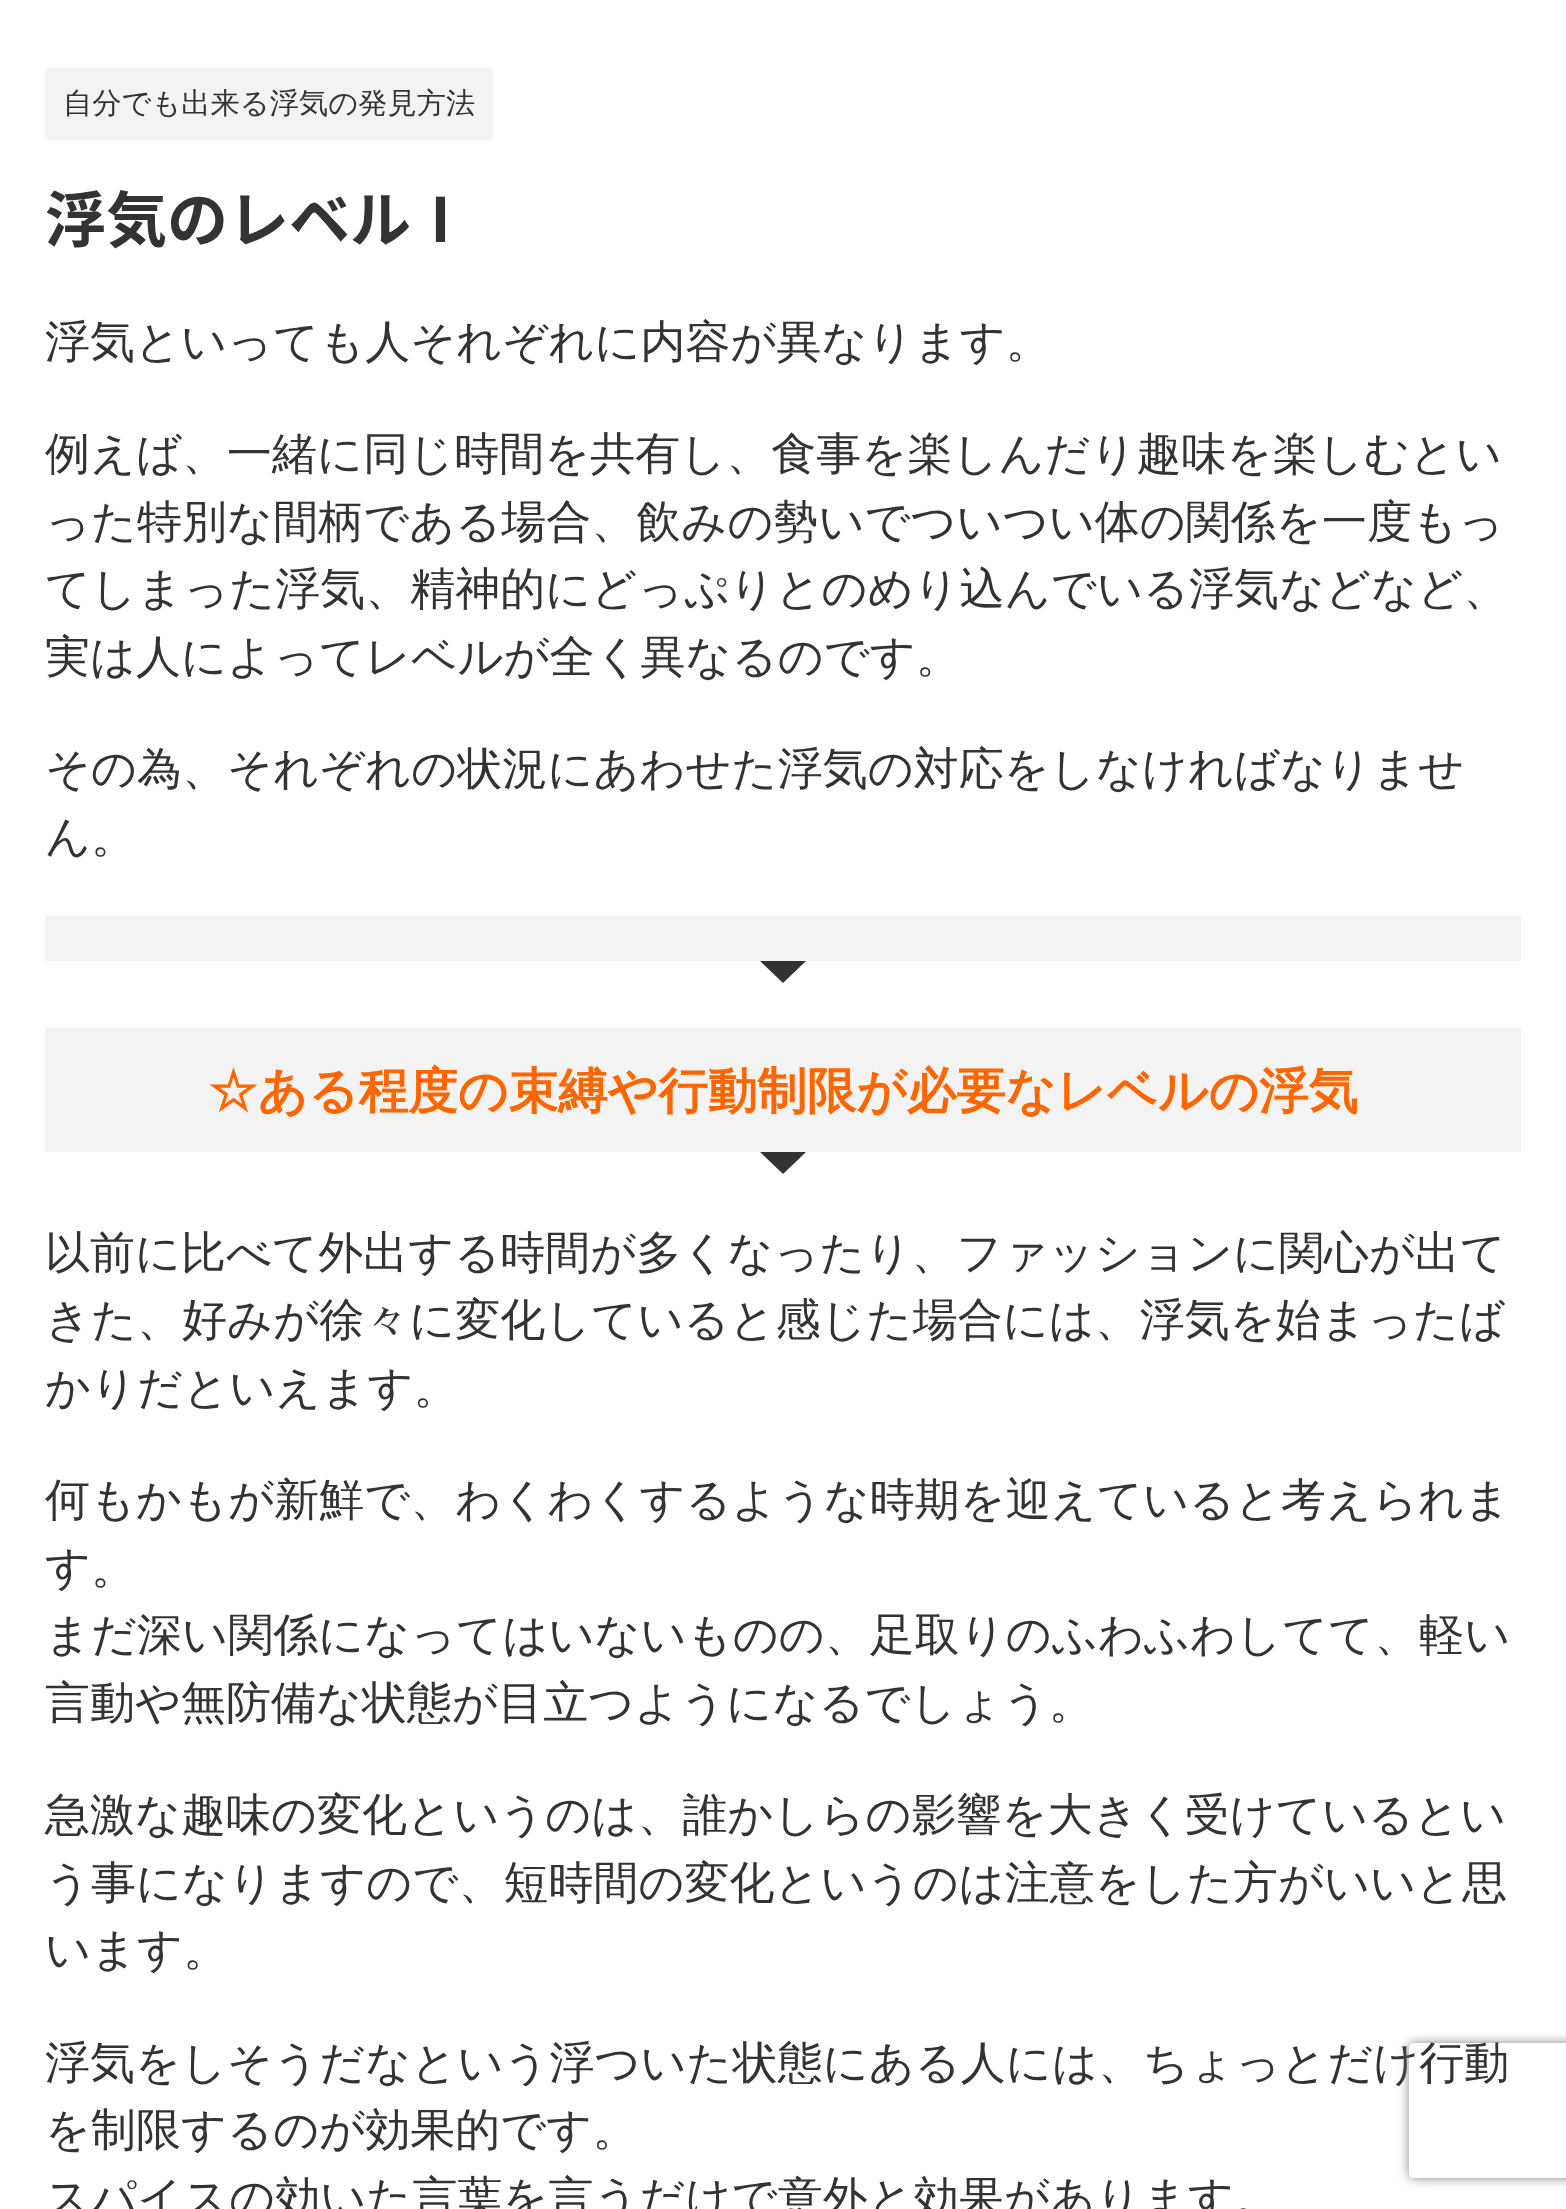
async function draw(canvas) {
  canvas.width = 1566;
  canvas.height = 2209;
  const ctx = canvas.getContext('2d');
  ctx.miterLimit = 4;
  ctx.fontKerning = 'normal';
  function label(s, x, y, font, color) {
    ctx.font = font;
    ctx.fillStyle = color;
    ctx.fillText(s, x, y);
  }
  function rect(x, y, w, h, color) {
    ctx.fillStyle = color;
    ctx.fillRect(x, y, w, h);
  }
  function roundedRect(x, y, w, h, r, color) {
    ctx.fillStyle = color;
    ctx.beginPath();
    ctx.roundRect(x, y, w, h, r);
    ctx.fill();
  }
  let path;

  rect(0, 0, 1566, 2209, '#fff');
  roundedRect(45, 68, 448, 72, 5, '#f3f3f3');
  label('自分でも出来る浮気の発見方法', 63, 113, '500 29.25px WenQuanYi Zen Hei', '#333');
  label('浮気', 45, 242, 'bold 61px Noto Sans JP', '#333');
  label('のレベル', 167, 242, 'bold 61px "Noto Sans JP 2"', '#333');
  label('Ⅰ', 410, 242, 'bold 61px Noto Sans JP', '#333');
  label('浮気といっても人それぞれに内容が異なります。', 45, 357, '500 45px WenQuanYi Zen Hei', '#333');
  label('例えば、一緒に同じ時間を共有し、食事を楽しんだり趣味を楽しむとい', 45, 469, '500 45px WenQuanYi Zen Hei', '#333');
  label('った特別な間柄である場合、飲みの勢いでついつい体の関係を一度もっ', 45, 537, '500 45px WenQuanYi Zen Hei', '#333');
  label('てしまった浮気、精神的にどっぷりとのめり込んでいる浮気などなど、', 45, 604, '500 45px WenQuanYi Zen Hei', '#333');
  label('実は人によってレベルが全く異なるのです。', 45, 672, '500 45px WenQuanYi Zen Hei', '#333');
  label('その為、それぞれの状況にあわせた浮気の対応をしなければなりませ', 45, 784, '500 45px WenQuanYi Zen Hei', '#333');
  label('ん。', 45, 852, '500 45px WenQuanYi Zen Hei', '#333');
  rect(45, 916, 1476, 45, '#f3f3f3');
  ctx.fillStyle = '#333';
  path = new Path2D('M760 961H806L783 983Z');
  ctx.fill(path);
  path = new Path2D('M765 961H801L804 962L794 972H772L762 962Z');
  ctx.fill(path);
  rect(45, 1028, 1476, 124, '#f3f3f3');
  label('☆ある程度の束縛や行動制限が必要なレベルの浮気', 208, 1108, 'bold 49.5px WenQuanYi Zen Hei', '#f60');
  ctx.fillStyle = '#333';
  path = new Path2D('M760 1152H806L783 1174Z');
  ctx.fill(path);
  path = new Path2D('M765 1152L762 1153L772 1163H794L804 1153L801 1152Z');
  ctx.fill(path);
  label('以前に比べて外出する時間が多くなったり、ファッションに関心が出て', 45, 1268, '500 45px WenQuanYi Zen Hei', '#333');
  label('きた、好みが徐々に変化していると感じた場合には、浮気を始まったば', 45, 1335, '500 45px WenQuanYi Zen Hei', '#333');
  label('かりだといえます。', 45, 1403, '500 45px WenQuanYi Zen Hei', '#333');
  label('何もかもが新鮮で、わくわくするような時期を迎えていると考えられま', 45, 1515, '500 45px WenQuanYi Zen Hei', '#333');
  label('す。', 45, 1583, '500 45px WenQuanYi Zen Hei', '#333');
  label('まだ深い関係になってはいないものの、足取りのふわふわしてて、軽い', 45, 1650, '500 45px WenQuanYi Zen Hei', '#333');
  label('言動や無防備な状態が目立つようになるでしょう。', 45, 1718, '500 45px WenQuanYi Zen Hei', '#333');
  label('急激な趣味の変化というのは、誰かしらの影響を大きく受けているとい', 45, 1830, '500 45px WenQuanYi Zen Hei', '#333');
  label('う事になりますので、短時間の変化というのは注意をした方がいいと思', 45, 1898, '500 45px WenQuanYi Zen Hei', '#333');
  label('います。', 45, 1965, '500 45px WenQuanYi Zen Hei', '#333');
  label('浮気をしそうだなという浮ついた状態にある人には、ちょっとだけ行動', 45, 2078, '500 45px WenQuanYi Zen Hei', '#333');
  label('を制限するのが効果的です。', 45, 2145, '500 45px WenQuanYi Zen Hei', '#333');
  label('スパイスの効いた言葉を言うだけで意外と効果があります。', 45, 2213, '500 45px WenQuanYi Zen Hei', '#333');
  ctx.save();
  path = new Path2D('M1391 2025H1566V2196H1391ZM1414 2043H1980C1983 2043 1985 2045 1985 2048V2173C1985 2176 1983 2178 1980 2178H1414C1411 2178 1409 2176 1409 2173V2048C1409 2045 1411 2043 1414 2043Z');
  ctx.clip(path, 'evenodd');
  ctx.fillStyle = '#808080';
  ctx.filter = 'blur(5.5px)';
  ctx.beginPath();
  ctx.roundRect(1409, 2043, 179, 135, 5);
  ctx.fill();
  ctx.filter = 'none';
  ctx.restore();
}

draw(document.querySelector('canvas'));
